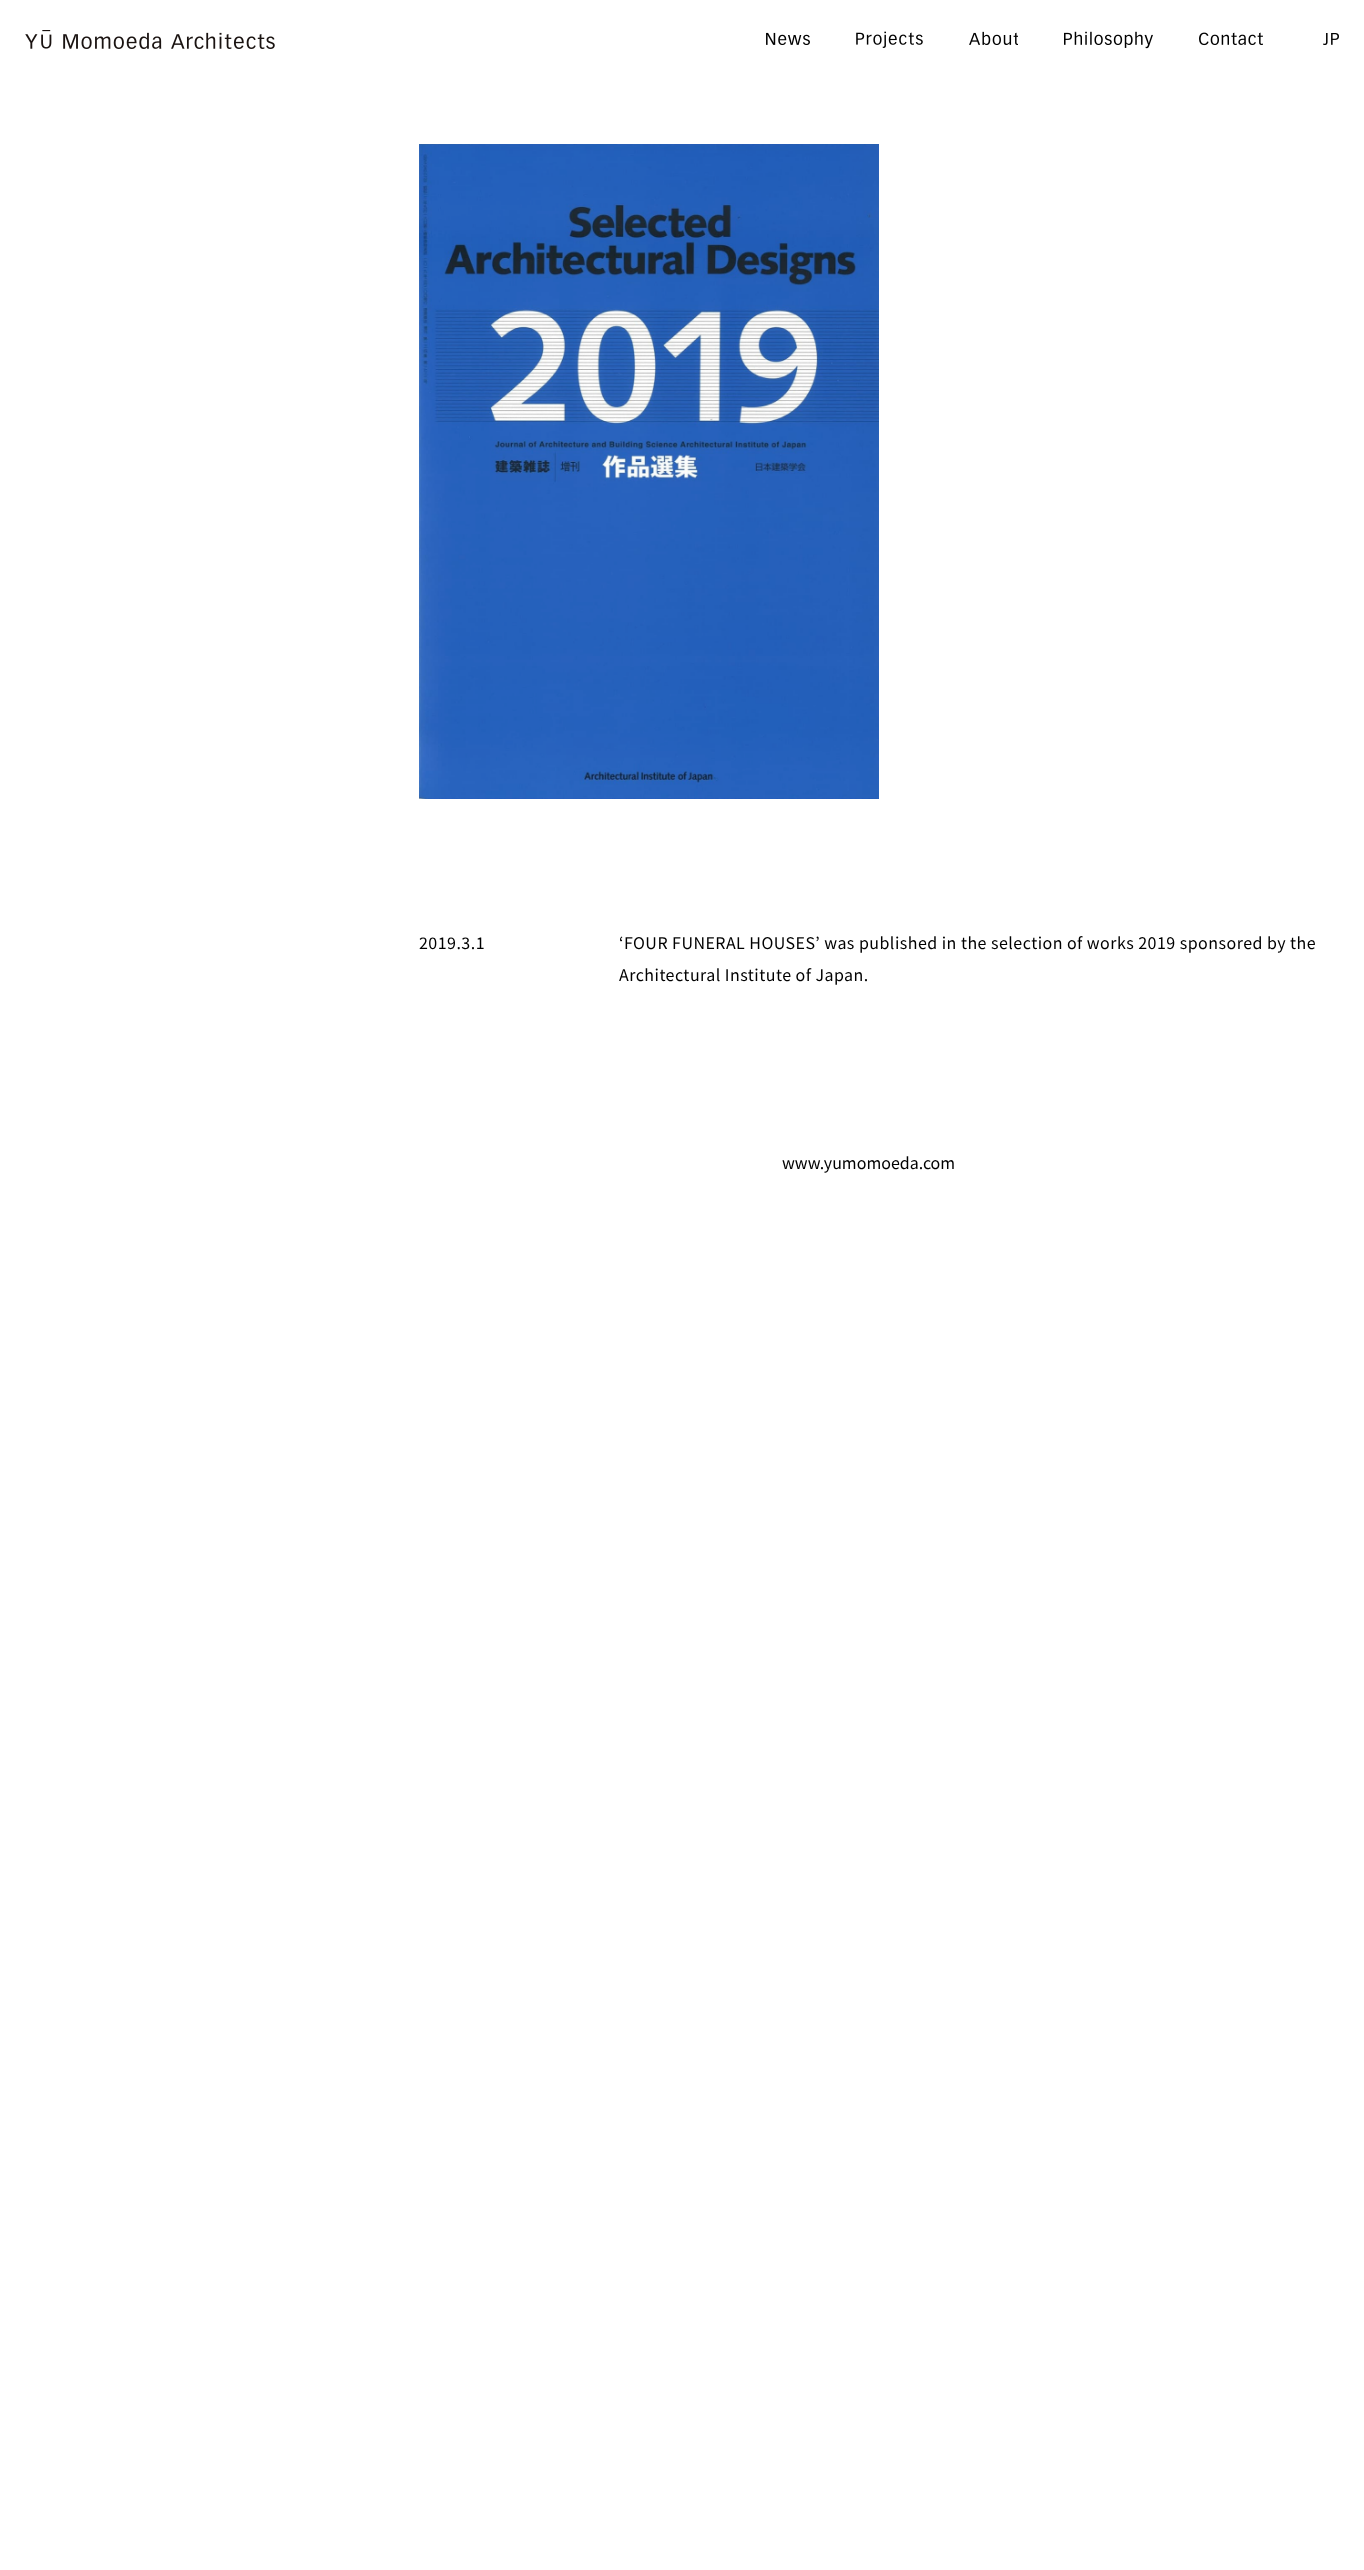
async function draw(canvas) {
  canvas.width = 1364;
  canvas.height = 2570;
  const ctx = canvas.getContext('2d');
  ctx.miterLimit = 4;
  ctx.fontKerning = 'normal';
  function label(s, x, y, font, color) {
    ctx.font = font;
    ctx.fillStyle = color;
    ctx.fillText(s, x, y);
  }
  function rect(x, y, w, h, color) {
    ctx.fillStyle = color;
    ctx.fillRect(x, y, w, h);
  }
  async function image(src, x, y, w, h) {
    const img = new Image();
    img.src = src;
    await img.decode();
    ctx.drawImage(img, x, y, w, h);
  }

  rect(0, 0, 1364, 2570, '#fff');
  await image('assets/img1.png', 25, 30, 250, 19);
  await image('assets/img2.png', 766, 32, 44, 13);
  await image('assets/img3.png', 856, 31, 67, 17);
  await image('assets/img4.png', 969, 31, 49, 14);
  await image('assets/img5.png', 1064, 31, 89, 18);
  await image('assets/img6.png', 1199, 32, 64, 14);
  await image('assets/img7.png', 1323, 33, 16, 12);
  await image('assets/img8.png', 419, 144, 460, 655);
  ctx.letterSpacing = '0.48px';
  label('2019.3.1', 419, 949, '16px Noto Sans JP', '#000');
  label('‘FOUR FUNERAL HOUSES’ was published in the selection of works 2019 sponsored by the', 619, 949, '16px Noto Sans JP', '#000');
  label('Architectural Institute of Japan.', 619, 981, '16px Noto Sans JP', '#000');
  ctx.letterSpacing = '0px';
  label('www.yumomoeda.com', 782, 1169, '16px Noto Sans JP', '#000');
}

draw(document.querySelector('canvas'));
